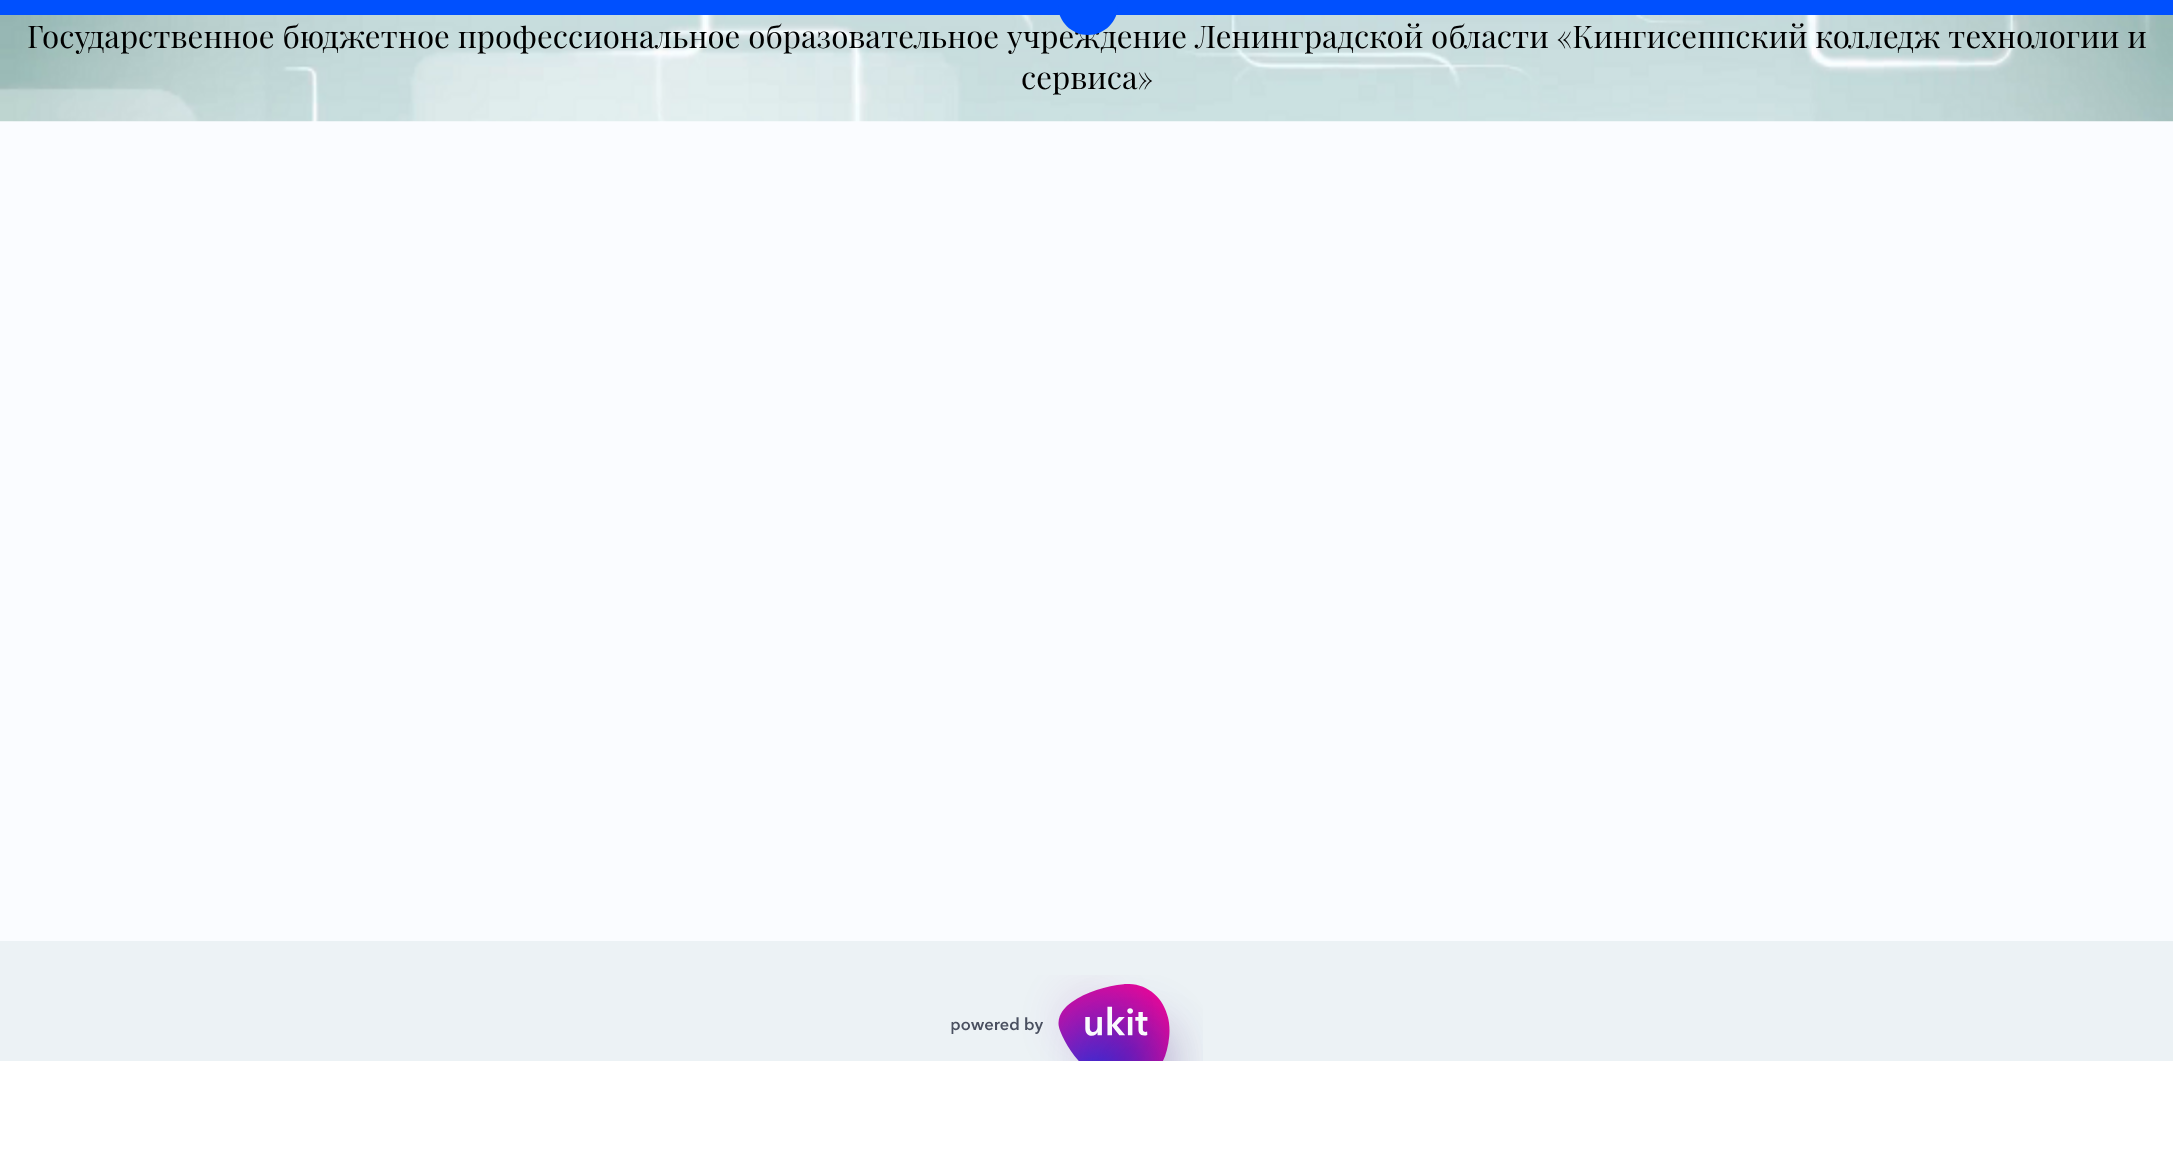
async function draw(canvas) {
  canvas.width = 2173;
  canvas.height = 1164;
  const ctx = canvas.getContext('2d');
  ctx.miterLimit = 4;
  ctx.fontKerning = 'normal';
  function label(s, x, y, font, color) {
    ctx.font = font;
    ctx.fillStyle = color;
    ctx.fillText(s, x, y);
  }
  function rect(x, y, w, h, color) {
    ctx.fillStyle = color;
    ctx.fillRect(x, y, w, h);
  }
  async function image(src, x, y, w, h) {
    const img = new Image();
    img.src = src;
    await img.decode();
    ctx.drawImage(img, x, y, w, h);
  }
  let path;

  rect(0, 0, 2173, 1164, '#fff');
  rect(0, 0, 2173, 15, '#0050fe');
  rect(0, 121, 2173, 820, '#fafcff');
  await image('assets/img1.png', 0, 15, 2173, 107);
  label('Государственное бюджетное профессиональное образовательное учреждение Ленинградской области «Кингисеппский колледж технологии и', 27, 48, '31.25px Playfair Display', '#000');
  ctx.fillStyle = '#0050fe';
  path = new Path2D('M1058-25H1118V5C1118 21.5 1104.5 35 1088 35C1071.5 35 1058 21.5 1058 5Z');
  ctx.fill(path);
  label('сервиса»', 1021, 89, '31.25px Playfair Display', '#000');
  rect(0, 941, 2173, 120, '#ecf2f5');
  await image('assets/img2.png', 951, 975, 252, 86);
}

draw(document.querySelector('canvas'));
